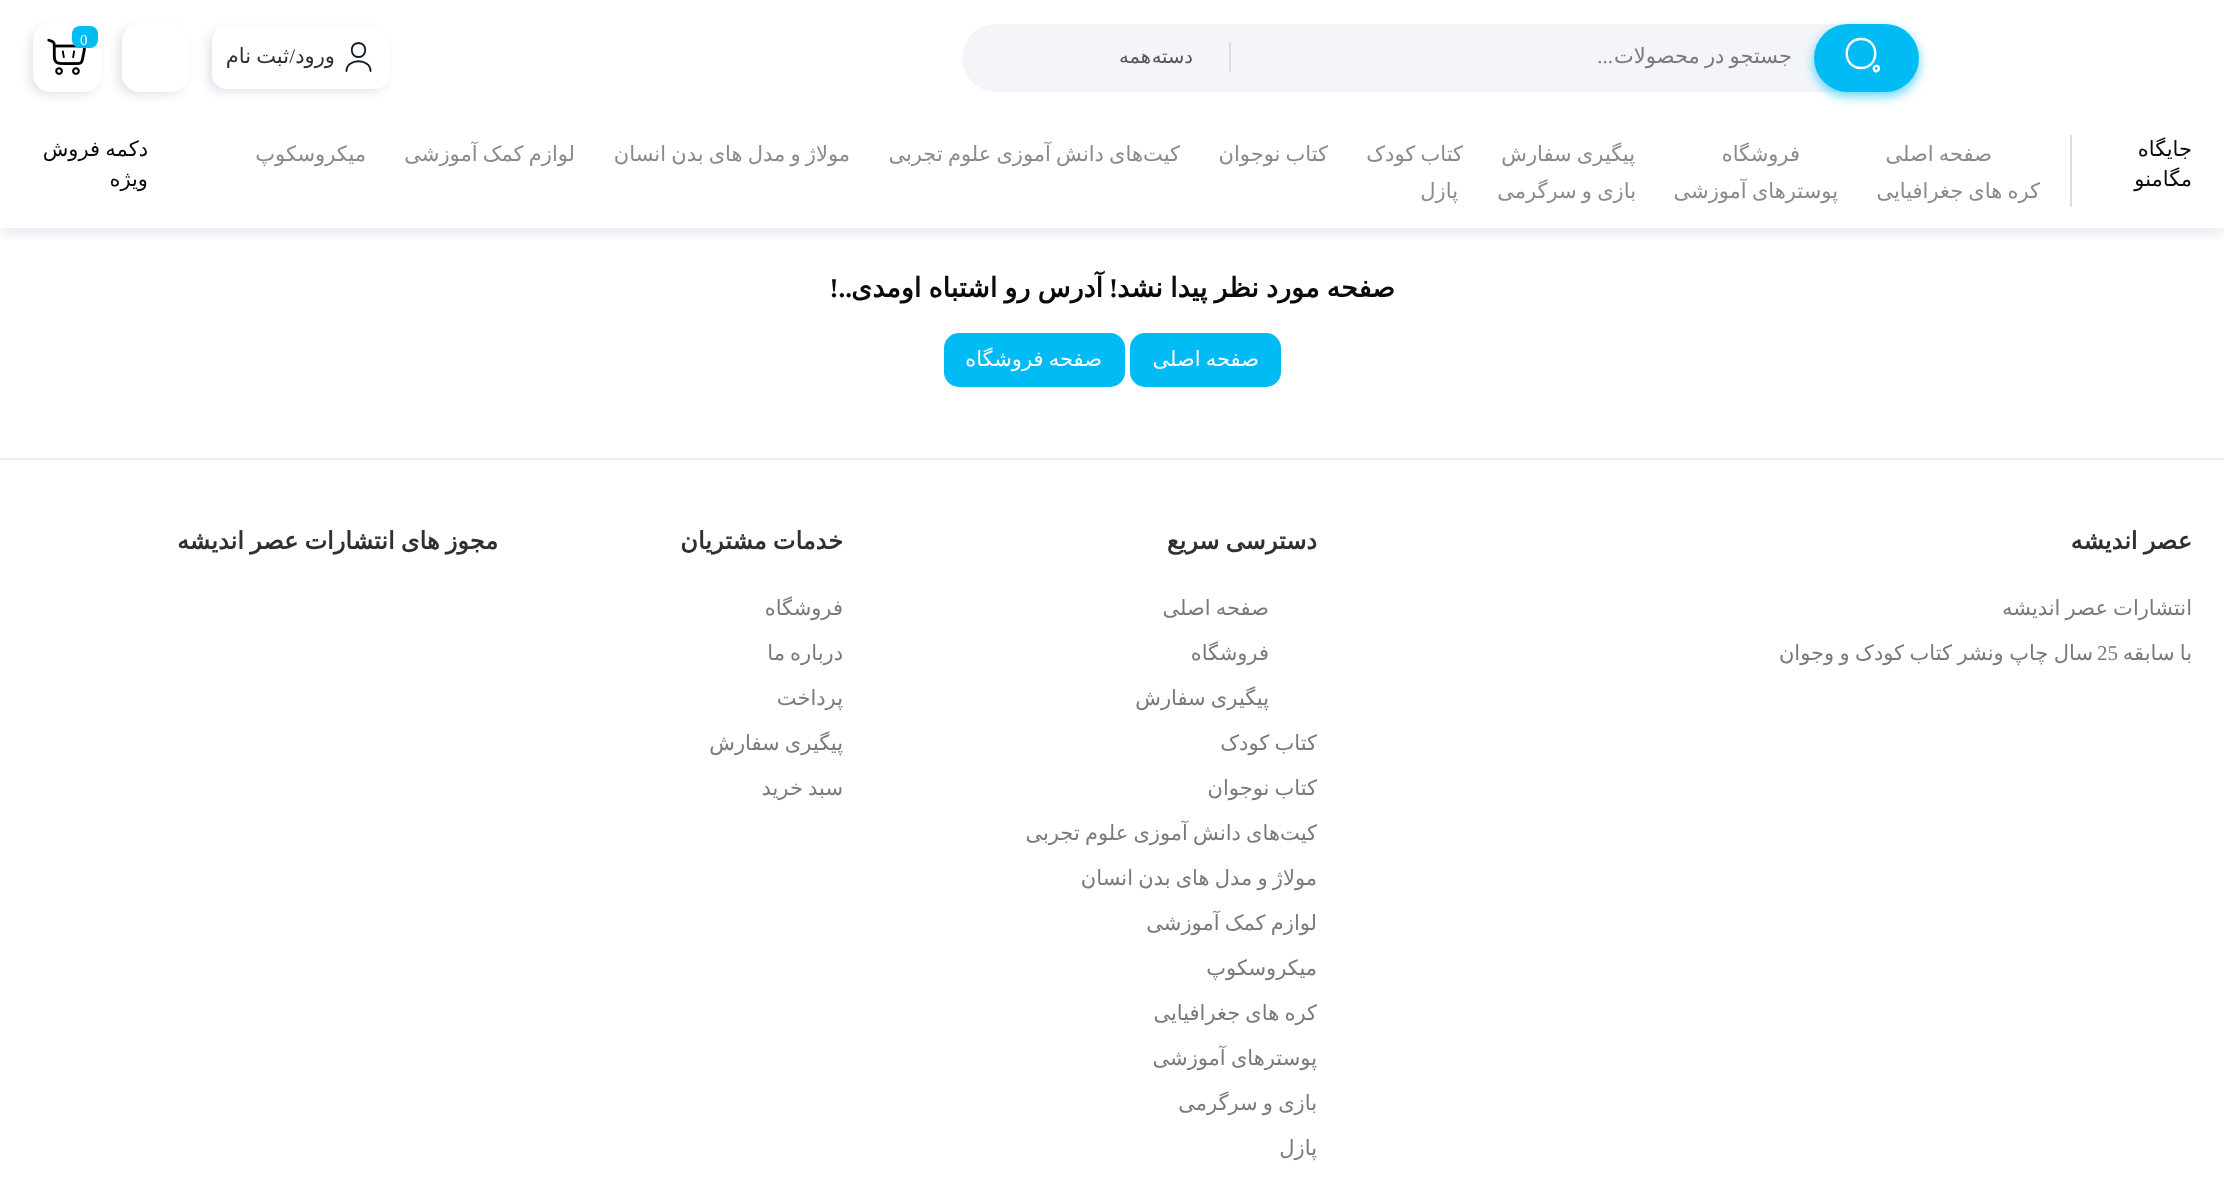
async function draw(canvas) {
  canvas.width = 2224;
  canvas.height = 1203;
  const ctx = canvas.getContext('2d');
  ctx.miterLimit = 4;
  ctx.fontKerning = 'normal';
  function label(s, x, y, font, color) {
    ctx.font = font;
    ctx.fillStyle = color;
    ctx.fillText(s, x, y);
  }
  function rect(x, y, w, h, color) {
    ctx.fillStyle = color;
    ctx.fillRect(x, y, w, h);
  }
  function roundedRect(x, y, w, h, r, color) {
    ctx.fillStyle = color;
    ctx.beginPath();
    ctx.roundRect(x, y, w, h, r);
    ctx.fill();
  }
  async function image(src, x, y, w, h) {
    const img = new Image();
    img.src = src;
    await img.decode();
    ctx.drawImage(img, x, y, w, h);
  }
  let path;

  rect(0, 0, 2224, 1203, '#fff');
  ctx.save();
  ctx.beginPath();
  ctx.rect(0, 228, 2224, 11);
  ctx.clip();
  ctx.fillStyle = '#0219591a';
  ctx.filter = 'blur(7.5px)';
  ctx.beginPath();
  ctx.rect(0, 5, 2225, 228);
  ctx.fill();
  ctx.filter = 'none';
  ctx.restore();
  roundedRect(962, 24, 957, 68, 34, '#f3f5f8');
  ctx.fillStyle = '#00bbf4a6';
  ctx.filter = 'blur(6px)';
  ctx.beginPath();
  ctx.roundRect(1814, 29, 105, 67, 33.5);
  ctx.fill();
  ctx.filter = 'none';
  roundedRect(1814, 24, 105, 68, 34, '#00bbf4');
  path = new Path2D('M1861 68C1880 68 1880 39 1861 39C1842 39 1842 68 1861 68ZM1874 69.5C1875.5 74 1880 69.5 1878.5 67C1877.5 64.5 1873 66.5 1874 69.5Z');
  ctx.strokeStyle = '#fff';
  ctx.lineWidth = 2.4;
  ctx.lineCap = 'round';
  ctx.lineJoin = 'round';
  ctx.stroke(path);
  ctx.wordSpacing = '-1.5px';
  ctx.direction = 'rtl';
  label('جستجو در محصولات', 1792, 63, '21px DejaVu Sans', '#7a7a7a');
  ctx.wordSpacing = '0px';
  label('...', 1613, 63, '21px Liberation Serif', '#7a7a7a');
  rect(1229, 42, 2, 30, '#ddd');
  label('دسته', 1193, 63, '19.5px DejaVu Sans', '#555');
  label('همه', 1151, 63, '19.5px DejaVu Sans', '#555');
  ctx.save();
  path = new Path2D('M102 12H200V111H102ZM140 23H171C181 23 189 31 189 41V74C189 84 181 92 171 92H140C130 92 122 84 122 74V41C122 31 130 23 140 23Z');
  ctx.clip(path, 'evenodd');
  ctx.fillStyle = '#0219591a';
  ctx.filter = 'blur(4.5px)';
  ctx.beginPath();
  ctx.roundRect(117, 27, 68, 69, 18);
  ctx.fill();
  ctx.filter = 'none';
  ctx.restore();
  ctx.save();
  path = new Path2D('M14 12H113V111H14ZM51 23H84C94 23 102 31 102 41V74C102 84 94 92 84 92H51C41 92 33 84 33 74V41C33 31 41 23 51 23Z');
  ctx.clip(path, 'evenodd');
  ctx.fillStyle = '#0219591a';
  ctx.filter = 'blur(4.5px)';
  ctx.beginPath();
  ctx.roundRect(29, 27, 69, 69, 18);
  ctx.fill();
  ctx.filter = 'none';
  ctx.restore();
  await image('assets/img1.png', 47, 38, 39, 37);
  roundedRect(72, 26, 26, 22, 8, '#00bbf4');
  ctx.direction = 'ltr';
  label('0', 80, 45, '15px Liberation Serif', '#fff');
  ctx.save();
  path = new Path2D('M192 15H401V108H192ZM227 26H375C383.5 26 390 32.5 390 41V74C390 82.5 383.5 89 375 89H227C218.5 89 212 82.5 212 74V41C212 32.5 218.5 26 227 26Z');
  ctx.clip(path, 'evenodd');
  ctx.fillStyle = '#0219591a';
  ctx.filter = 'blur(4.5px)';
  ctx.beginPath();
  ctx.roundRect(207, 30, 179, 63, 15);
  ctx.fill();
  ctx.filter = 'none';
  ctx.restore();
  path = new Path2D('M358.5 57C367.5 57 367.5 43 358.5 43C349.5 43 349.5 57 358.5 57ZM370.5 71C370.5 58 346.5 58 346.5 71');
  ctx.strokeStyle = '#111827';
  ctx.lineWidth = 1.8;
  ctx.stroke(path);
  ctx.direction = 'rtl';
  label('ورود', 335, 63, '21px DejaVu Sans', '#303030');
  label('/', 295, 63, '21px Liberation Serif', '#303030');
  ctx.wordSpacing = '-1.5px';
  label('ثبت نام', 289, 63, '21px DejaVu Sans', '#303030');
  rect(2070, 135, 2, 72, '#ddd');
  ctx.wordSpacing = '0px';
  label('جایگاه', 2192, 156, '21px DejaVu Sans', '#0a0a0a');
  label('مگامنو', 2192, 186, '21px DejaVu Sans', '#0a0a0a');
  ctx.wordSpacing = '-1.5px';
  label('صفحه اصلی', 1992, 161, '21px DejaVu Sans', '#8a8a8a');
  ctx.wordSpacing = '0px';
  label('فروشگاه', 1800, 161, '21px DejaVu Sans', '#8a8a8a');
  ctx.wordSpacing = '-1.5px';
  label('پیگیری سفارش', 1635, 161, '21px DejaVu Sans', '#8a8a8a');
  label('کتاب کودک', 1463, 161, '21px DejaVu Sans', '#8a8a8a');
  label('کتاب نوجوان', 1328, 161, '21px DejaVu Sans', '#8a8a8a');
  ctx.wordSpacing = '0px';
  label('کیت', 1180, 161, '21px DejaVu Sans', '#8a8a8a');
  ctx.wordSpacing = '-1.5px';
  label('های دانش آموزی علوم تجربی', 1143, 161, '21px DejaVu Sans', '#8a8a8a');
  label('مولاژ و مدل های بدن انسان', 850, 161, '21px DejaVu Sans', '#8a8a8a');
  label('لوازم کمک آموزشی', 575, 161, '21px DejaVu Sans', '#8a8a8a');
  ctx.wordSpacing = '0px';
  label('میکروسکوپ', 366, 161, '21px DejaVu Sans', '#8a8a8a');
  ctx.wordSpacing = '-1.5px';
  label('کره های جغرافیایی', 2040, 198, '21px DejaVu Sans', '#8a8a8a');
  label('پوسترهای آموزشی', 1838, 198, '21px DejaVu Sans', '#8a8a8a');
  label('بازی و سرگرمی', 1636, 198, '21px DejaVu Sans', '#8a8a8a');
  ctx.wordSpacing = '0px';
  label('پازل', 1458, 198, '21px DejaVu Sans', '#8a8a8a');
  ctx.wordSpacing = '-1.5px';
  label('دکمه فروش', 148, 156, '21px DejaVu Sans', '#0a0a0a');
  ctx.wordSpacing = '0px';
  label('ویژه', 148, 186, '21px DejaVu Sans', '#0a0a0a');
  ctx.wordSpacing = '-1.5px';
  label('صفحه مورد نظر پیدا نشد', 1395, 297, 'bold 27px DejaVu Sans', '#0a0a0a');
  ctx.wordSpacing = '0px';
  label('!', 1118, 297, 'bold 27px Liberation Serif', '#0a0a0a');
  ctx.wordSpacing = '-1.5px';
  label('آدرس رو اشتباه اومدی', 1103, 297, 'bold 27px DejaVu Sans', '#0a0a0a');
  ctx.wordSpacing = '0px';
  label('..!', 852, 297, 'bold 27px Liberation Serif', '#0a0a0a');
  roundedRect(1130, 333, 151, 54, 15, '#00bbf4');
  ctx.wordSpacing = '-1.5px';
  label('صفحه اصلی', 1259, 366, '21px DejaVu Sans', '#fff');
  roundedRect(944, 333, 181, 54, 15, '#00bbf4');
  label('صفحه فروشگاه', 1102, 366, '21px DejaVu Sans', '#fff');
  rect(0, 458, 2224, 2, '#ededed');
  label('عصر اندیشه', 2192, 549, 'bold 24px DejaVu Sans', '#303030');
  label('انتشارات عصر اندیشه', 2192, 615, '21px DejaVu Sans', '#7a7a7a');
  label('با سابقه', 2192, 660, '21px DejaVu Sans', '#7a7a7a');
  ctx.wordSpacing = '0px';
  ctx.direction = 'ltr';
  label('25', 2097, 660, '21px Liberation Serif', '#7a7a7a');
  ctx.wordSpacing = '-1.25px';
  ctx.direction = 'rtl';
  label('سال چاپ ونشر کتاب کودک و وجوان', 2093, 660, '21px DejaVu Sans', '#7a7a7a');
  ctx.wordSpacing = '-1.5px';
  label('دسترسی سریع', 1317, 549, 'bold 24px DejaVu Sans', '#303030');
  label('صفحه اصلی', 1269, 615, '21px DejaVu Sans', '#7a7a7a');
  ctx.wordSpacing = '0px';
  label('فروشگاه', 1269, 660, '21px DejaVu Sans', '#7a7a7a');
  ctx.wordSpacing = '-1.5px';
  label('پیگیری سفارش', 1269, 705, '21px DejaVu Sans', '#7a7a7a');
  label('کتاب کودک', 1317, 750, '21px DejaVu Sans', '#7a7a7a');
  label('کتاب نوجوان', 1317, 795, '21px DejaVu Sans', '#7a7a7a');
  ctx.wordSpacing = '0px';
  label('کیت', 1317, 840, '21px DejaVu Sans', '#7a7a7a');
  ctx.wordSpacing = '-1.5px';
  label('های دانش آموزی علوم تجربی', 1280, 840, '21px DejaVu Sans', '#7a7a7a');
  label('مولاژ و مدل های بدن انسان', 1317, 885, '21px DejaVu Sans', '#7a7a7a');
  label('لوازم کمک آموزشی', 1317, 930, '21px DejaVu Sans', '#7a7a7a');
  ctx.wordSpacing = '0px';
  label('میکروسکوپ', 1317, 975, '21px DejaVu Sans', '#7a7a7a');
  ctx.wordSpacing = '-1.5px';
  label('کره های جغرافیایی', 1317, 1020, '21px DejaVu Sans', '#7a7a7a');
  label('پوسترهای آموزشی', 1317, 1065, '21px DejaVu Sans', '#7a7a7a');
  label('بازی و سرگرمی', 1317, 1110, '21px DejaVu Sans', '#7a7a7a');
  ctx.wordSpacing = '0px';
  label('پازل', 1317, 1155, '21px DejaVu Sans', '#7a7a7a');
  ctx.wordSpacing = '-1.5px';
  label('خدمات مشتریان', 843, 549, 'bold 24px DejaVu Sans', '#303030');
  ctx.wordSpacing = '0px';
  label('فروشگاه', 843, 615, '21px DejaVu Sans', '#7a7a7a');
  ctx.wordSpacing = '-1.5px';
  label('درباره ما', 843, 660, '21px DejaVu Sans', '#7a7a7a');
  ctx.wordSpacing = '0px';
  label('پرداخت', 843, 705, '21px DejaVu Sans', '#7a7a7a');
  ctx.wordSpacing = '-1.5px';
  label('پیگیری سفارش', 843, 750, '21px DejaVu Sans', '#7a7a7a');
  label('سبد خرید', 843, 795, '21px DejaVu Sans', '#7a7a7a');
  label('مجوز های انتشارات عصر اندیشه', 498, 549, 'bold 24px DejaVu Sans', '#303030');
}

draw(document.querySelector('canvas'));
